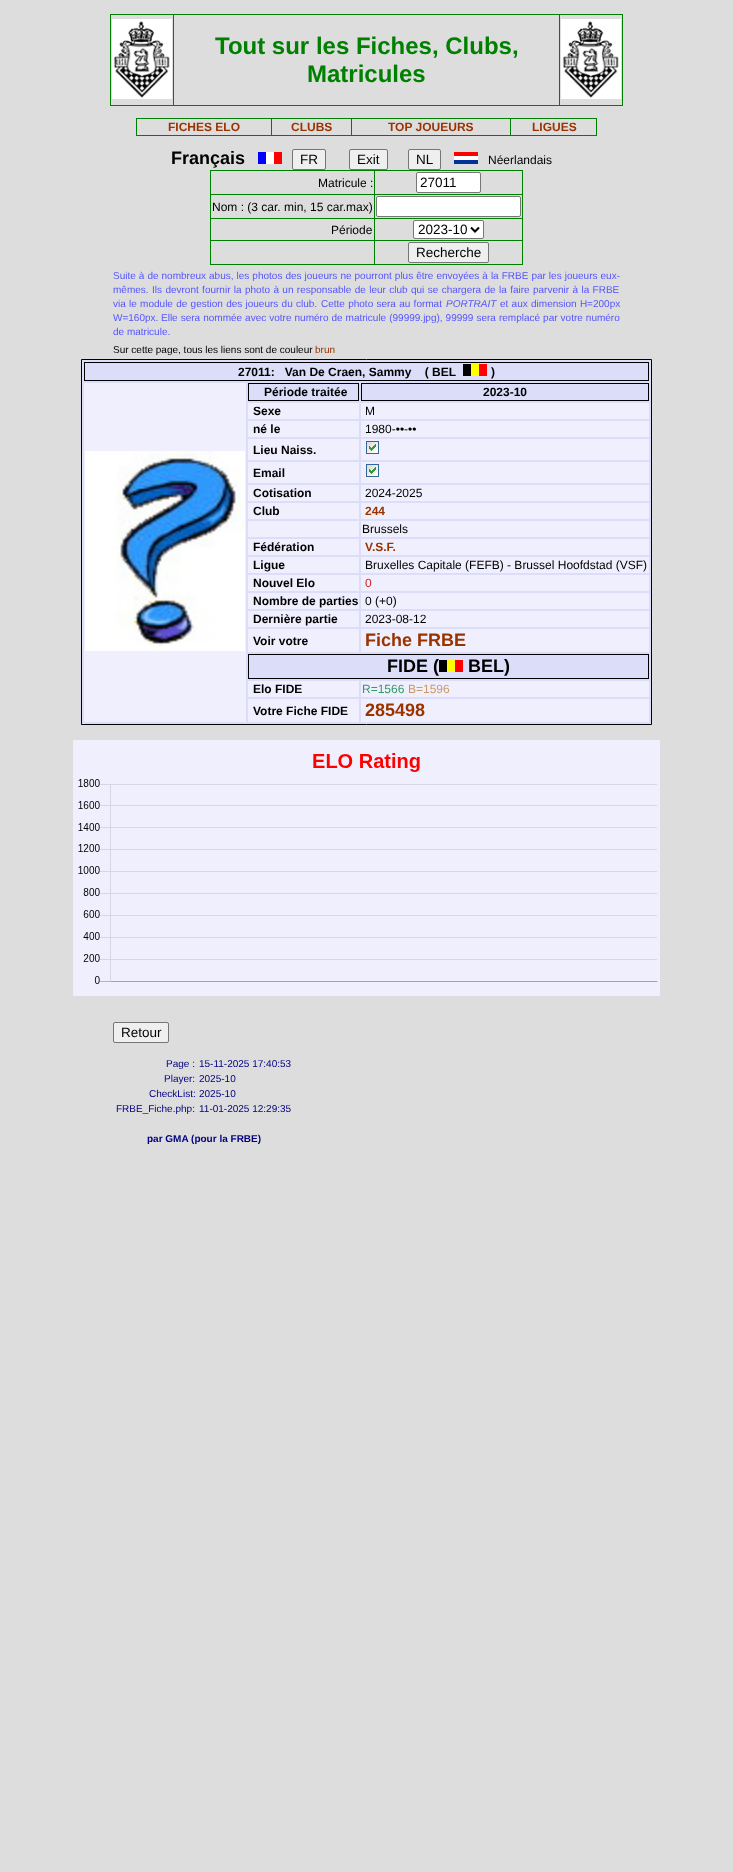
async function draw(canvas) {
  canvas.width = 733;
  canvas.height = 1872;
  const ctx = canvas.getContext('2d');
  ctx.miterLimit = 4;
  ctx.fontKerning = 'normal';
  function label(s, x, y, font, color) {
    ctx.font = font;
    ctx.fillStyle = color;
    ctx.fillText(s, x, y);
  }
  function rect(x, y, w, h, color) {
    ctx.fillStyle = color;
    ctx.fillRect(x, y, w, h);
  }
  async function image(src, x, y, w, h) {
    const img = new Image();
    img.src = src;
    await img.decode();
    ctx.drawImage(img, x, y, w, h);
  }
  let path;

  rect(0, 0, 733, 1872, '#ddd');
  rect(110, 14, 513, 1, '#008000');
  rect(622, 14, 1, 92, '#008000');
  rect(110, 105, 513, 1, '#008000');
  rect(110, 14, 1, 92, '#008000');
  await image('assets/img1.png', 112, 19, 60, 80);
  rect(173, 14, 1, 92, '#008000');
  label('Tout sur les Fiches, Clubs,', 215, 54, 'bold 24px Liberation Sans', '#008000');
  label('Matricules', 307, 82, 'bold 24px Liberation Sans', '#008000');
  rect(559, 14, 1, 92, '#008000');
  await image('assets/img2.png', 561, 19, 60, 80);
  rect(136, 118, 461, 1, '#008000');
  rect(596, 118, 1, 18, '#008000');
  rect(136, 135, 461, 1, '#008000');
  rect(136, 118, 1, 18, '#008000');
  label('FICHES ELO', 168, 131, 'bold 12px Liberation Sans', '#930');
  rect(271, 118, 1, 18, '#008000');
  label('CLUBS', 291, 131, 'bold 12px Liberation Sans', '#930');
  rect(351, 118, 1, 18, '#008000');
  label('TOP JOUEURS', 388, 131, 'bold 12px Liberation Sans', '#930');
  rect(510, 118, 1, 18, '#008000');
  label('LIGUES', 532, 131, 'bold 12px Liberation Sans', '#930');
  label('Français', 171, 164, 'bold 18px Liberation Sans', '#000');
  await image('assets/img3.png', 258, 152, 24, 12);
  ctx.fillStyle = '#efefef';
  ctx.beginPath();
  ctx.roundRect(292.5, 149.5, 33, 20, 1.5);
  ctx.fill();
  ctx.strokeStyle = '#767676';
  ctx.stroke();
  label('FR', 300, 164, '13.5px Liberation Sans', '#000');
  ctx.fillStyle = '#efefef';
  ctx.beginPath();
  ctx.roundRect(349.5, 149.5, 38, 20, 1.5);
  ctx.fill();
  ctx.stroke();
  label('Exit', 357, 164, '13.5px Liberation Sans', '#000');
  ctx.fillStyle = '#efefef';
  ctx.beginPath();
  ctx.roundRect(408.5, 149.5, 32, 20, 1.5);
  ctx.fill();
  ctx.stroke();
  label('NL', 416, 164, '13.5px Liberation Sans', '#000');
  await image('assets/img4.png', 454, 152, 24, 12);
  label('Néerlandais', 488, 164, '12px Liberation Sans', '#000');
  rect(210, 170, 313, 1, '#008000');
  rect(210, 194, 313, 1, '#008000');
  rect(210, 218, 313, 1, '#008000');
  rect(210, 240, 313, 1, '#008000');
  rect(522, 240, 1, 25, '#008000');
  rect(522, 218, 1, 23, '#008000');
  rect(522, 194, 1, 25, '#008000');
  rect(522, 170, 1, 25, '#008000');
  rect(210, 264, 313, 1, '#008000');
  rect(210, 240, 1, 25, '#008000');
  rect(210, 218, 1, 23, '#008000');
  rect(210, 194, 1, 25, '#008000');
  rect(210, 170, 1, 25, '#008000');
  label('Matricule :', 318, 187, '12px Liberation Sans', '#000');
  ctx.fillStyle = '#fff';
  ctx.beginPath();
  ctx.roundRect(416.5, 172.5, 64, 20, 1.5);
  ctx.fill();
  ctx.stroke();
  label('27011', 420, 187, '13.5px Liberation Sans', '#000');
  label('Nom : (3 car. min, 15 car.max)', 212, 211, '12px Liberation Sans', '#000');
  ctx.fillStyle = '#fff';
  ctx.beginPath();
  ctx.roundRect(376.5, 196.5, 144, 20, 1.5);
  ctx.fill();
  ctx.stroke();
  label('Période', 331, 234, '12px Liberation Sans', '#000');
  ctx.fillStyle = '#fff';
  ctx.beginPath();
  ctx.roundRect(413.5, 220.5, 70, 18, 1.5);
  ctx.fill();
  ctx.stroke();
  path = new Path2D('M471 227.5L475 231.5L479 227.5');
  ctx.strokeStyle = '#000';
  ctx.lineWidth = 2;
  ctx.stroke(path);
  label('2023-10', 418, 234, '13.5px Liberation Sans', '#000');
  rect(374, 170, 1, 95, '#008000');
  ctx.fillStyle = '#efefef';
  ctx.beginPath();
  ctx.roundRect(408.5, 242.5, 80, 20, 1.5);
  ctx.fill();
  ctx.strokeStyle = '#767676';
  ctx.lineWidth = 1;
  ctx.stroke();
  label('Recherche', 416, 257, '13.5px Liberation Sans', '#000');
  ctx.wordSpacing = '0.25px';
  label('Suite à de nombreux abus, les photos des joueurs ne pourront plus être envoyées à la FRBE par les joueurs eux-', 113, 279, '10px Liberation Sans', '#55f');
  ctx.wordSpacing = '0px';
  label('mêmes.', 113, 293, '10px Liberation Sans', '#55f');
  ctx.wordSpacing = '0.6px';
  label('Ils devront fournir la photo à un responsable de leur club qui se chargera de la faire parvenir à la FRBE', 152, 293, '10px Liberation Sans', '#55f');
  ctx.wordSpacing = '0.5px';
  label('via le module de gestion des joueurs du club.', 113, 307, '10px Liberation Sans', '#55f');
  label('Cette photo sera au format', 321, 307, '10px Liberation Sans', '#55f');
  ctx.wordSpacing = '0px';
  label('PORTRAIT', 446, 307, 'italic 10px Liberation Sans', '#55f');
  ctx.wordSpacing = '0.5px';
  label('et aux dimension H=200px', 500, 307, '10px Liberation Sans', '#55f');
  ctx.wordSpacing = '0px';
  label('W=160px.', 113, 321, '10px Liberation Sans', '#55f');
  ctx.wordSpacing = '0.25px';
  label('Elle sera nommée avec votre numéro de matricule (99999.jpg), 99999 sera remplacé par votre numéro', 161, 321, '10px Liberation Sans', '#55f');
  ctx.wordSpacing = '0px';
  label('de matricule.', 113, 335, '10px Liberation Sans', '#55f');
  label('Sur cette page, tous les liens sont de couleur', 113, 353, '10px Liberation Sans', '#000');
  label('brun', 315, 353, '10px Liberation Sans', '#930');
  ctx.fillStyle = '#dbddf9';
  ctx.beginPath();
  ctx.rect(81.5, 359.5, 570, 365);
  ctx.fill();
  ctx.strokeStyle = '#000';
  ctx.stroke();
  ctx.strokeRect(84.5, 362.5, 564, 18);
  label('27011:   Van De Craen, Sammy    ( BEL', 238, 376, 'bold 12px Liberation Sans', '#000');
  await image('assets/img5.png', 463, 364, 24, 12);
  label(')', 491, 376, 'bold 12px Liberation Sans', '#000');
  rect(84, 383, 162, 339, '#f0effe');
  await image('assets/img6.png', 85, 451, 160, 200);
  ctx.strokeRect(248.5, 383.5, 110, 17);
  label('Période traitée', 264, 396, 'bold 12px Liberation Sans', '#000');
  ctx.strokeRect(361.5, 383.5, 287, 17);
  label('2023-10', 483, 396, 'bold 12px Liberation Sans', '#000');
  rect(248, 403, 111, 16, '#f0effe');
  label('Sexe', 253, 415, 'bold 12px Liberation Sans', '#000');
  rect(361, 403, 288, 16, '#f0effe');
  label('M', 365, 415, '12px Liberation Sans', '#000');
  rect(248, 421, 111, 16, '#f0effe');
  label('né le', 253, 433, 'bold 12px Liberation Sans', '#000');
  rect(361, 421, 288, 16, '#f0effe');
  label('1980-••-••', 365, 433, '12px Liberation Sans', '#000');
  rect(248, 439, 111, 21, '#f0effe');
  label('Lieu Naiss.', 253, 454, 'bold 12px Liberation Sans', '#000');
  rect(361, 439, 288, 21, '#f0effe');
  await image('assets/img7.png', 366, 441, 13, 13);
  rect(248, 462, 111, 21, '#f0effe');
  label('Email', 253, 477, 'bold 12px Liberation Sans', '#000');
  rect(361, 462, 288, 21, '#f0effe');
  await image('assets/img7.png', 366, 464, 13, 13);
  rect(248, 485, 111, 16, '#f0effe');
  label('Cotisation', 253, 497, 'bold 12px Liberation Sans', '#000');
  rect(361, 485, 288, 16, '#f0effe');
  label('2024-2025', 365, 497, '12px Liberation Sans', '#000');
  rect(248, 503, 111, 16, '#f0effe');
  label('Club', 253, 515, 'bold 12px Liberation Sans', '#000');
  rect(361, 503, 288, 16, '#f0effe');
  label('244', 365, 515, 'bold 12px Liberation Sans', '#930');
  rect(248, 521, 111, 16, '#f0effe');
  rect(361, 521, 288, 16, '#f0effe');
  label('Brussels', 362, 533, '12px Liberation Sans', '#000');
  rect(248, 539, 111, 16, '#f0effe');
  label('Fédération', 253, 551, 'bold 12px Liberation Sans', '#000');
  rect(361, 539, 288, 16, '#f0effe');
  label('V.S.F.', 365, 551, 'bold 12px Liberation Sans', '#930');
  rect(248, 557, 111, 16, '#f0effe');
  label('Ligue', 253, 569, 'bold 12px Liberation Sans', '#000');
  rect(361, 557, 288, 16, '#f0effe');
  label('Bruxelles Capitale (FEFB) - Brussel Hoofdstad (VSF)', 365, 569, '12px Liberation Sans', '#000');
  rect(248, 575, 111, 16, '#f0effe');
  label('Nouvel Elo', 253, 587, 'bold 12px Liberation Sans', '#000');
  rect(361, 575, 288, 16, '#f0effe');
  label('0', 365, 587, '12px Liberation Sans', '#ce2020');
  rect(248, 593, 111, 16, '#f0effe');
  label('Nombre de parties', 253, 605, 'bold 12px Liberation Sans', '#000');
  rect(361, 593, 288, 16, '#f0effe');
  label('0 (+0)', 365, 605, '12px Liberation Sans', '#000');
  rect(248, 611, 111, 16, '#f0effe');
  label('Dernière partie', 253, 623, 'bold 12px Liberation Sans', '#000');
  rect(361, 611, 288, 16, '#f0effe');
  label('2023-08-12', 365, 623, '12px Liberation Sans', '#000');
  rect(248, 629, 111, 23, '#f0effe');
  label('Voir votre', 253, 645, 'bold 12px Liberation Sans', '#000');
  rect(361, 629, 288, 23, '#f0effe');
  label('Fiche FRBE', 365, 646, 'bold 18px Liberation Sans', '#930');
  ctx.strokeRect(248.5, 654.5, 400, 24);
  label('FIDE (', 387, 672, 'bold 18px Liberation Sans', '#000');
  await image('assets/img5.png', 439, 660, 24, 12);
  label('BEL)', 468, 672, 'bold 18px Liberation Sans', '#000');
  rect(248, 681, 111, 16, '#f0effe');
  label('Elo FIDE', 253, 693, 'bold 12px Liberation Sans', '#000');
  rect(361, 681, 288, 16, '#f0effe');
  label('R=1566', 362, 693, '12px Liberation Sans', '#396');
  label('B=1596', 408, 693, '12px Liberation Sans', '#c96');
  rect(248, 699, 111, 23, '#f0effe');
  label('Votre Fiche FIDE', 253, 715, 'bold 12px Liberation Sans', '#000');
  rect(361, 699, 288, 23, '#f0effe');
  label('285498', 365, 716, 'bold 18px Liberation Sans', '#930');
  rect(73, 740, 587, 256, '#f0effe');
  await image('assets/img8.png', 78, 753, 580, 231);
  ctx.fillStyle = '#efefef';
  ctx.beginPath();
  ctx.roundRect(113.5, 1022.5, 55, 20, 1.5);
  ctx.fill();
  ctx.strokeStyle = '#767676';
  ctx.stroke();
  label('Retour', 121, 1037, '13.5px Liberation Sans', '#000');
  label('Page :', 166, 1067, '10px Liberation Sans', '#000080');
  label('15-11-2025 17:40:53', 199, 1067, '10px Liberation Sans', '#000080');
  label('Player:', 164, 1082, '10px Liberation Sans', '#000080');
  label('2025-10', 199, 1082, '10px Liberation Sans', '#000080');
  label('CheckList:', 149, 1097, '10px Liberation Sans', '#000080');
  label('2025-10', 199, 1097, '10px Liberation Sans', '#000080');
  label('FRBE_Fiche.php:', 116, 1112, '10px Liberation Sans', '#000080');
  label('11-01-2025 12:29:35', 199, 1112, '10px Liberation Sans', '#000080');
  label('par GMA (pour la FRBE)', 147, 1142, 'bold 10px Liberation Sans', '#000080');
}

draw(document.querySelector('canvas'));
